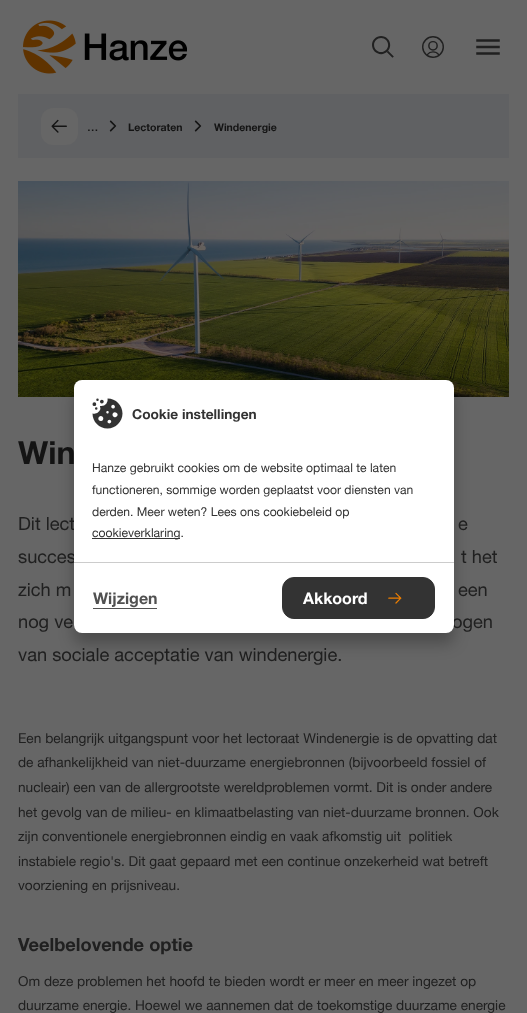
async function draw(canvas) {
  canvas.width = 527;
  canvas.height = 1013;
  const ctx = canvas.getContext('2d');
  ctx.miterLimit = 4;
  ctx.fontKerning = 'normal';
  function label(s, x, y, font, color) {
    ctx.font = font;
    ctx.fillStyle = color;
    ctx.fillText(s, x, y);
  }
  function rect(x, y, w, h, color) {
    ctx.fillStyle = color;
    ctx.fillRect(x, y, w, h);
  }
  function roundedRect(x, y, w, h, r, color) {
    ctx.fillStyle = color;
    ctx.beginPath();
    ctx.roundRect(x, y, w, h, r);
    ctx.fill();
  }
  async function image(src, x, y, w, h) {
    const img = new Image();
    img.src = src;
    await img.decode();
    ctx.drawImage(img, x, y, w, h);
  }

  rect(0, 0, 527, 1013, '#666');
  await image('assets/img1.png', 23, 20, 164, 54);
  await image('assets/img2.png', 372, 36, 22, 22);
  await image('assets/img3.png', 422, 36, 22, 22);
  await image('assets/img4.png', 476, 39, 24, 16);
  rect(18, 94, 491, 64, '#606163');
  roundedRect(41, 108, 37, 37, 12, '#666');
  await image('assets/img5.png', 51, 119, 16, 14);
  label('...', 87, 131, '13.7px "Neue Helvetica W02"', '#141414');
  await image('assets/img6.png', 109, 120, 8, 12);
  label('Lectoraten', 128, 131, 'bold 10.5px "Neue Helvetica W02"', '#141414');
  await image('assets/img6.png', 194, 120, 8, 12);
  label('Windenergie', 214, 131, 'bold 10.5px "Neue Helvetica W02"', '#141414');
  await image('assets/img7.png', 18, 181, 491, 216);
  label('Win', 18, 464, 'bold 32px "Neue Helvetica W02"', '#141414');
  label('Dit lect', 18, 530, '18.25px "Neue Helvetica W02"', '#202020');
  label('e', 458, 530, '18.25px "Neue Helvetica W02"', '#202020');
  label('succes', 18, 563, '18.25px "Neue Helvetica W02"', '#202020');
  label('t het', 461, 563, '18.25px "Neue Helvetica W02"', '#202020');
  label('zich m', 18, 596, '18.25px "Neue Helvetica W02"', '#202020');
  label('een', 458, 596, '18.25px "Neue Helvetica W02"', '#202020');
  label('nog ve', 18, 628, '18.25px "Neue Helvetica W02"', '#202020');
  label('ogen', 452, 628, '18.25px "Neue Helvetica W02"', '#202020');
  label('van sociale acceptatie van windenergie.', 18, 661, '18.25px "Neue Helvetica W02"', '#202020');
  label('Een belangrijk uitgangspunt voor het lectoraat Windenergie is de opvatting dat', 18, 743, '13.7px "Neue Helvetica W02"', '#202020');
  label('de afhankelijkheid van niet-duurzame energiebronnen (bijvoorbeeld fossiel of', 18, 767, '13.7px "Neue Helvetica W02"', '#202020');
  label('nucleair) een van de allergrootste wereldproblemen vormt. Dit is onder andere', 18, 792, '13.7px "Neue Helvetica W02"', '#202020');
  label('het gevolg van de milieu- en klimaatbelasting van niet-duurzame bronnen. Ook', 18, 817, '13.7px "Neue Helvetica W02"', '#202020');
  label('zijn conventionele energiebronnen eindig en vaak afkomstig uit  politiek', 18, 841, '13.7px "Neue Helvetica W02"', '#202020');
  label('instabiele regio\'s. Dit gaat gepaard met een continue onzekerheid wat betreft', 18, 866, '13.7px "Neue Helvetica W02"', '#202020');
  label('voorziening en prijsniveau.', 18, 890, '13.7px "Neue Helvetica W02"', '#202020');
  label('Veelbelovende optie', 18, 951, 'bold 18.25px "Neue Helvetica W02"', '#202020');
  label('Om deze problemen het hoofd te bieden wordt er meer en meer ingezet op', 18, 986, '13.7px "Neue Helvetica W02"', '#202020');
  label('duurzame energie. Hoewel we aannemen dat de toekomstige duurzame energie', 18, 1010, '13.7px "Neue Helvetica W02"', '#202020');
  ctx.fillStyle = '#00000040';
  ctx.filter = 'blur(7.5px)';
  ctx.beginPath();
  ctx.roundRect(74, 391, 380, 253, 8);
  ctx.fill();
  ctx.filter = 'none';
  roundedRect(74, 380, 380, 253, 8, '#fff');
  await image('assets/img8.png', 92, 398, 31, 31);
  label('Cookie instellingen', 132, 419, 'bold 13.7px "Neue Helvetica W02"', '#333');
  label('Hanze gebruikt cookies om de website optimaal te laten', 92, 472, '12.15px "Neue Helvetica W02"', '#333');
  label('functioneren, sommige worden geplaatst voor diensten van', 92, 494, '12.15px "Neue Helvetica W02"', '#333');
  label('derden. Meer weten? Lees ons cookiebeleid op', 92, 516, '12.15px "Neue Helvetica W02"', '#333');
  rect(92, 538, 88, 1, '#333');
  label('cookieverklaring.', 92, 537, '12.15px "Neue Helvetica W02"', '#333');
  rect(74, 562, 380, 1, '#ccc');
  label('Wijzigen', 93, 604, 'bold 16px "Neue Helvetica W02"', '#515151');
  rect(93, 608, 64, 1, '#515151');
  ctx.fillStyle = '#333';
  ctx.beginPath();
  ctx.roundRect(282.5, 577.5, 152, 41, 11.5);
  ctx.fill();
  ctx.strokeStyle = '#333';
  ctx.stroke();
  label('Akkoord', 303, 604, 'bold 16px "Neue Helvetica W02"', '#fff');
  await image('assets/img9.png', 388, 592, 14, 12);
}

draw(document.querySelector('canvas'));
